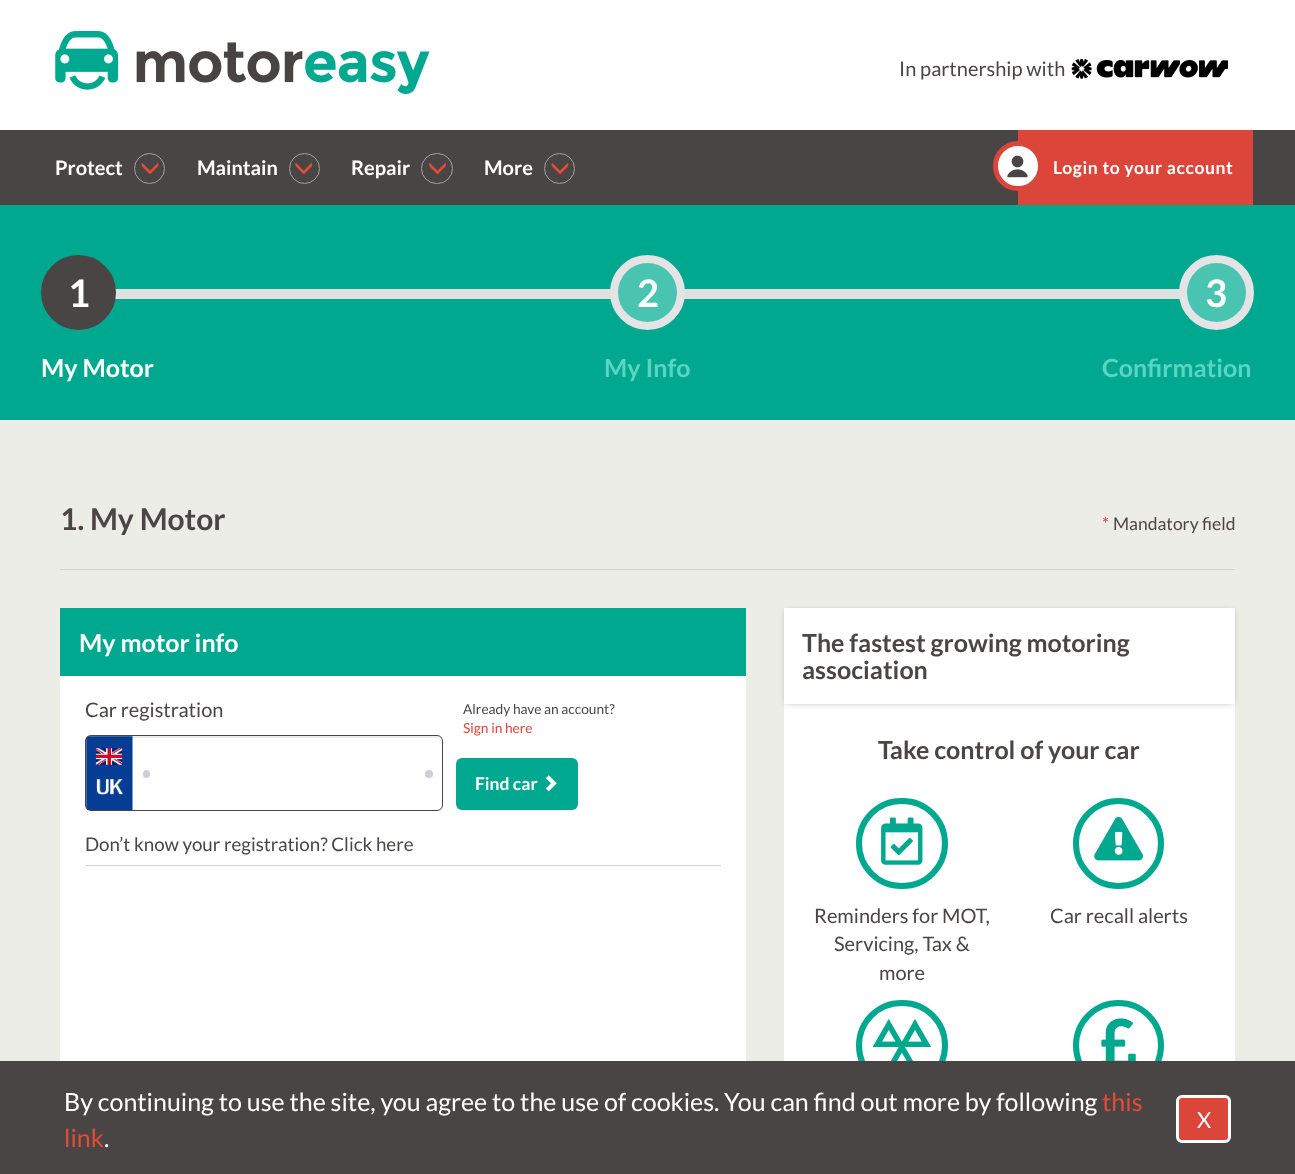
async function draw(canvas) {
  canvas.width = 1295;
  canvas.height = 1174;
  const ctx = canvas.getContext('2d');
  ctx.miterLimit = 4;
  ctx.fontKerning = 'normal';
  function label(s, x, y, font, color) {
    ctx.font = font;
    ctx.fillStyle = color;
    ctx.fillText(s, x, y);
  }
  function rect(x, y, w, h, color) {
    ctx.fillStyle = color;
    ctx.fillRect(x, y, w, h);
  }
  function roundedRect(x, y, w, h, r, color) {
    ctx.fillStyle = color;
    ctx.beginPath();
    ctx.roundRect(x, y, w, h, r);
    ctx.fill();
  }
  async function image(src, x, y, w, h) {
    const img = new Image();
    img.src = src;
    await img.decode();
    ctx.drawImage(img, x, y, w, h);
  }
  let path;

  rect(0, 0, 1295, 1174, '#fff');
  await image('assets/img1.png', 55, 31, 375, 63);
  label('In partnership with', 899, 76, '20px Lato', '#4b4545');
  await image('assets/img2.png', 1071, 59, 157, 20);
  rect(0, 130, 1295, 75, '#4a4545');
  label('Protect', 55, 175, 'bold 20px Lato', '#fff');
  ctx.beginPath();
  ctx.arc(149.5, 168.5, 15, 0, 2 * Math.PI);
  ctx.strokeStyle = '#a5a0a0';
  ctx.stroke();
  await image('assets/img3.png', 141, 162, 18, 13);
  label('Maintain', 197, 175, 'bold 20px Lato', '#fff');
  ctx.beginPath();
  ctx.arc(304.5, 168.5, 15, 0, 2 * Math.PI);
  ctx.stroke();
  await image('assets/img4.png', 295, 162, 18, 13);
  label('Repair', 351, 175, 'bold 20px Lato', '#fff');
  ctx.beginPath();
  ctx.roundRect(421.5, 153.5, 31, 30, 15);
  ctx.stroke();
  await image('assets/img5.png', 429, 162, 17, 13);
  label('More', 484, 175, 'bold 20px Lato', '#fff');
  ctx.beginPath();
  ctx.arc(559.5, 168.5, 15, 0, 2 * Math.PI);
  ctx.stroke();
  await image('assets/img3.png', 551, 162, 18, 13);
  rect(1018, 130, 235, 75, '#dc453a');
  ctx.fillStyle = '#fff';
  ctx.beginPath();
  ctx.arc(1018, 166, 22.5, 0, 2 * Math.PI);
  ctx.fill();
  ctx.strokeStyle = '#dc453a';
  ctx.lineWidth = 5;
  ctx.stroke();
  await image('assets/img6.png', 1007, 155, 21, 23);
  ctx.letterSpacing = '0.6px';
  label('Login to your account', 1053, 174, 'bold 17.5px Lato', '#fff');
  rect(0, 420, 1295, 641, '#edede7');
  rect(0, 205, 1295, 215, '#00a88f');
  rect(115, 289, 1065, 10, '#e0e0e0');
  ctx.fillStyle = '#4a4545';
  ctx.beginPath();
  ctx.arc(78.5, 292.5, 33.5, 0, 2 * Math.PI);
  ctx.fill();
  ctx.strokeStyle = '#4a4545';
  ctx.lineWidth = 8;
  ctx.stroke();
  ctx.letterSpacing = '0px';
  label('1', 68, 307, 'bold 38px Lato', '#fff');
  label('My Motor', 41, 377, 'bold 25px Lato', '#fff');
  ctx.fillStyle = '#48c4b0';
  ctx.beginPath();
  ctx.arc(647.5, 292.5, 33.5, 0, 2 * Math.PI);
  ctx.fill();
  ctx.strokeStyle = '#e4e4e6';
  ctx.stroke();
  label('2', 637, 307, 'bold 38px Lato', '#fff');
  label('My Info', 604, 377, 'bold 25px Lato', '#5bd4c2');
  ctx.fillStyle = '#48c4b0';
  ctx.beginPath();
  ctx.arc(1216.5, 292.5, 33.5, 0, 2 * Math.PI);
  ctx.fill();
  ctx.stroke();
  label('3', 1205, 307, 'bold 38px Lato', '#fff');
  label('Confirmation', 1102, 377, 'bold 25px Lato', '#5bd4c2');
  rect(60, 569, 1175, 1, '#d4d1d1');
  label('1. My Motor', 60, 530, 'bold 30px Lato', '#4b4545');
  label('*', 1102, 530, '17.5px Lato', '#dc453a');
  label('Mandatory field', 1113, 530, '17.5px Lato', '#4b4545');
  rect(60, 608, 686, 68, '#00a88f');
  label('My motor info', 79, 652, 'bold 25px Lato', '#fff');
  rect(60, 676, 686, 385, '#fff');
  rect(85, 865, 636, 1, '#d4d1d1');
  label('Car registration', 85, 717, '20px Lato', '#4b4545');
  await image('assets/img7.png', 86, 736, 47, 74);
  ctx.fillStyle = '#00000012';
  path = new Path2D('M91 738H436C439 738 441 740 441 742V741C441 738 439 736 436 736H91C88 736 86 738 86 741V742C86 740 88 738 91 738Z');
  ctx.fill(path);
  ctx.beginPath();
  ctx.roundRect(85.5, 735.5, 357, 75, 5.5);
  ctx.strokeStyle = '#4a4545';
  ctx.lineWidth = 1;
  ctx.stroke();
  roundedRect(143, 770, 7, 8, 3.5, '#ceced6');
  ctx.beginPath();
  ctx.arc(429, 774, 4, 0, 2 * Math.PI);
  ctx.fill();
  label('Already have an account?', 463, 714, '13.75px Lato', '#4b4545');
  label('Sign in here', 463, 733, '13.75px Lato', '#dc453a');
  roundedRect(456, 758, 122, 52, 6, '#00a88f');
  label('Find car', 475, 790, 'bold 17.5px Lato', '#fff');
  await image('assets/img8.png', 545, 775, 12, 17);
  label('Don’t know your registration? Click here', 85, 851, '18.75px Lato', '#4b4545');
  rect(784, 704, 451, 357, '#fff');
  ctx.fillStyle = '#0000004d';
  ctx.filter = 'blur(3px)';
  ctx.beginPath();
  ctx.rect(786, 611, 447, 92);
  ctx.fill();
  ctx.filter = 'none';
  rect(784, 608, 451, 96, '#fff');
  label('The fastest growing motoring', 802, 652, 'bold 25px Lato', '#4b4545');
  label('association', 802, 679, 'bold 25px Lato', '#4b4545');
  label('Take control of your car', 878, 759, 'bold 25px Lato', '#4b4545');
  ctx.beginPath();
  ctx.roundRect(859, 801, 86, 85, 42.5);
  ctx.strokeStyle = '#00a88f';
  ctx.lineWidth = 6;
  ctx.stroke();
  await image('assets/img9.png', 881, 817, 42, 48);
  label('Reminders for MOT,', 814, 923, '20px Lato', '#4b4545');
  label('Servicing, Tax &', 834, 951, '20px Lato', '#4b4545');
  label('more', 879, 980, '20px Lato', '#4b4545');
  ctx.beginPath();
  ctx.arc(1118.5, 843.5, 42.5, 0, 2 * Math.PI);
  ctx.stroke();
  await image('assets/img10.png', 1094, 817, 49, 44);
  label('Car recall alerts', 1050, 923, '20px Lato', '#4b4545');
  ctx.beginPath();
  ctx.roundRect(859, 1003, 86, 85, 42.5);
  ctx.stroke();
  await image('assets/img11.png', 873, 1019, 58, 42);
  ctx.beginPath();
  ctx.arc(1118.5, 1045.5, 42.5, 0, 2 * Math.PI);
  ctx.stroke();
  await image('assets/img12.png', 1101, 1018, 35, 43);
  rect(0, 1061, 1295, 113, '#4a4545');
  label('By continuing to use the site, you agree to the use of cookies. You can find out more by following', 64, 1111, '25px Lato', '#fff');
  label('this', 1102, 1111, '25px Lato', '#e34c37');
  label('link', 64, 1147, '25px Lato', '#e34c37');
  label('.', 104, 1147, '25px Lato', '#fff');
  ctx.fillStyle = '#dc453a';
  ctx.beginPath();
  ctx.roundRect(1177.5, 1096.5, 52, 45, 4.5);
  ctx.fill();
  ctx.strokeStyle = '#fff';
  ctx.lineWidth = 3;
  ctx.stroke();
  label('X', 1197, 1128, '22px Lato', '#fff');
}

draw(document.querySelector('canvas'));
